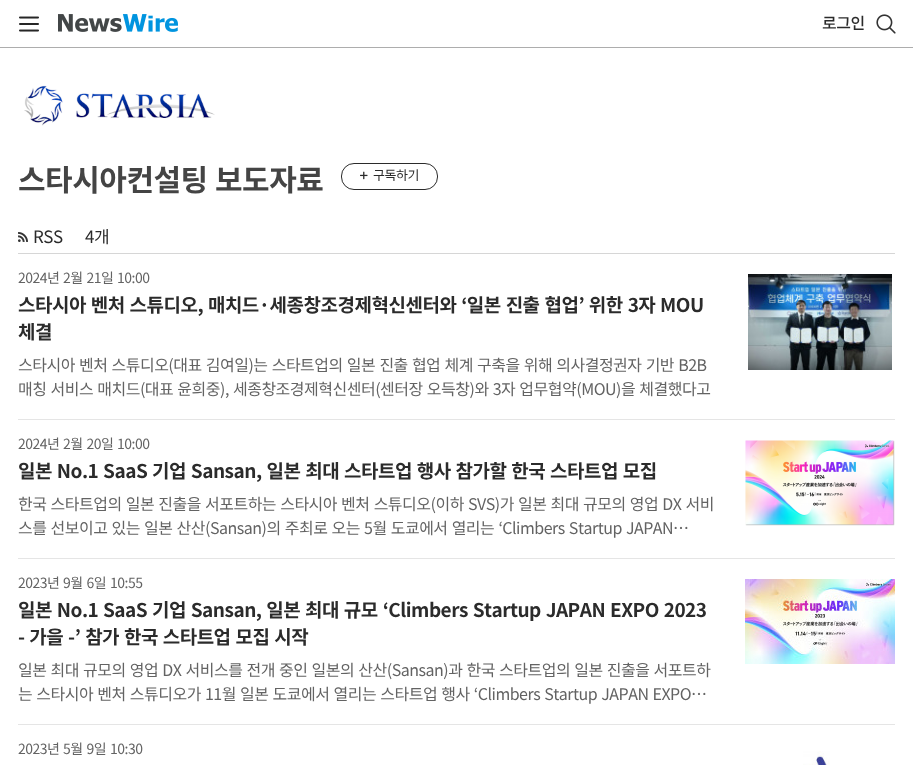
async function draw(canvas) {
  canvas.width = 913;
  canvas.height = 765;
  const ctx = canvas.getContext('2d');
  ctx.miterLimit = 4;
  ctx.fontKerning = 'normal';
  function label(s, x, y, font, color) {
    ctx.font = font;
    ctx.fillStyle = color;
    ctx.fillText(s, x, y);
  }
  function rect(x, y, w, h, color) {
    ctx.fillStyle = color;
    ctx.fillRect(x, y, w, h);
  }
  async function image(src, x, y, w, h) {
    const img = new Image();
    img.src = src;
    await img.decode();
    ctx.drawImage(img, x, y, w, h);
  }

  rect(0, 0, 913, 765, '#fff');
  rect(0, 47, 913, 1, '#adadad');
  await image('assets/img1.png', 19, 16, 20, 16);
  await image('assets/img2.png', 58, 14, 120, 18);
  ctx.letterSpacing = '-0.5px';
  label('로그인', 822, 29, '500 16px Noto Sans KR', '#2b2b2b');
  await image('assets/img3.png', 876, 14, 20, 20);
  await image('assets/img4.png', 24, 85, 191, 41);
  label('스타시아컨설팅', 18, 191, 'bold 30px Noto Sans KR', '#444');
  label('보도자료', 215, 191, 'bold 30px Noto Sans KR', '#444');
  ctx.beginPath();
  ctx.roundRect(341.5, 163.5, 96, 26, 12.5);
  ctx.strokeStyle = '#2b2b2b';
  ctx.stroke();
  await image('assets/img5.png', 360, 171, 8, 9);
  label('구독하기', 373, 180, '13px Noto Sans KR', '#2b2b2b');
  rect(18, 253, 877, 1, '#d6d6d6');
  await image('assets/img6.png', 18, 232, 10, 10);
  label('RSS', 33, 243, '17px Noto Sans KR', '#2b2b2b');
  label('4개', 85, 243, '17px Noto Sans KR', '#2b2b2b');
  rect(18, 419, 877, 1, '#e5e5e5');
  ctx.wordSpacing = '1px';
  label('2024년 2월 21일', 18, 283, '14px Noto Sans KR', '#636363');
  ctx.wordSpacing = '0px';
  label('10:00', 117, 283, '14px Noto Sans KR', '#636363');
  ctx.wordSpacing = '1px';
  label('스타시아 벤처 스튜디오, 매치드·세종창조경제혁신센터와 ‘일본 진출 협업’ 위한 3자 MOU', 18, 312, 'bold 19px Noto Sans KR', '#2b2b2b');
  ctx.wordSpacing = '0px';
  label('체결', 18, 339, 'bold 19px Noto Sans KR', '#2b2b2b');
  ctx.wordSpacing = '1px';
  label('스타시아 벤처 스튜디오(대표 김여일)는 스타트업의 일본 진출 협업 체계 구축을 위해 의사결정권자 기반 B2B', 18, 371, '16px Noto Sans KR', '#636363');
  label('매칭 서비스 매치드(대표 윤희중), 세종창조경제혁신센터(센터장 오득창)와 3자 업무협약(MOU)을 체결했다고', 18, 395, '16px Noto Sans KR', '#636363');
  await image('assets/img7.png', 748, 274, 144, 96);
  rect(18, 558, 877, 1, '#e5e5e5');
  label('2024년 2월 20일', 18, 449, '14px Noto Sans KR', '#636363');
  ctx.wordSpacing = '0px';
  label('10:00', 117, 449, '14px Noto Sans KR', '#636363');
  ctx.wordSpacing = '1px';
  label('일본 No.1 SaaS 기업 Sansan, 일본 최대 스타트업 행사 참가할 한국 스타트업 모집', 18, 478, 'bold 19px Noto Sans KR', '#2b2b2b');
  label('한국 스타트업의 일본 진출을 서포트하는 스타시아 벤처 스튜디오(이하 SVS)가 일본 최대 규모의 영업 DX 서비', 18, 510, '16px Noto Sans KR', '#636363');
  label('스를 선보이고 있는 일본 산산(Sansan)의 주최로 오는 5월 도쿄에서 열리는 ‘Climbers Startup JAPAN…', 18, 534, '16px Noto Sans KR', '#636363');
  await image('assets/img8.png', 745, 440, 150, 86);
  rect(18, 724, 877, 1, '#e5e5e5');
  label('2023년 9월 6일', 18, 588, '14px Noto Sans KR', '#636363');
  ctx.wordSpacing = '0px';
  label('10:55', 110, 588, '14px Noto Sans KR', '#636363');
  ctx.wordSpacing = '1px';
  label('일본 No.1', 18, 617, 'bold 19px Noto Sans KR', '#2b2b2b');
  label('SaaS 기업 Sansan, 일본 최대 규모 ‘Climbers Startup JAPAN EXPO 2023', 103, 617, 'bold 19px Noto Sans KR', '#2b2b2b');
  label('- 가을 -’ 참가 한국 스타트업 모집 시작', 18, 644, 'bold 19px Noto Sans KR', '#2b2b2b');
  label('일본 최대 규모의 영업 DX 서비스를 전개 중인 일본의 산산(Sansan)과 한국 스타트업의 일본 진출을 서포트하', 18, 676, '16px Noto Sans KR', '#636363');
  label('는 스타시아 벤처 스튜디오가 11월 일본 도쿄에서 열리는 스타트업 행사 ‘Climbers Startup JAPAN EXPO…', 18, 700, '16px Noto Sans KR', '#636363');
  await image('assets/img9.png', 745, 579, 150, 85);
  label('2023년 5월 9일', 18, 754, '14px Noto Sans KR', '#636363');
  ctx.wordSpacing = '0px';
  label('10:30', 110, 754, '14px Noto Sans KR', '#636363');
  await image('assets/img10.png', 803, 751, 27, 14);
}

draw(document.querySelector('canvas'));
